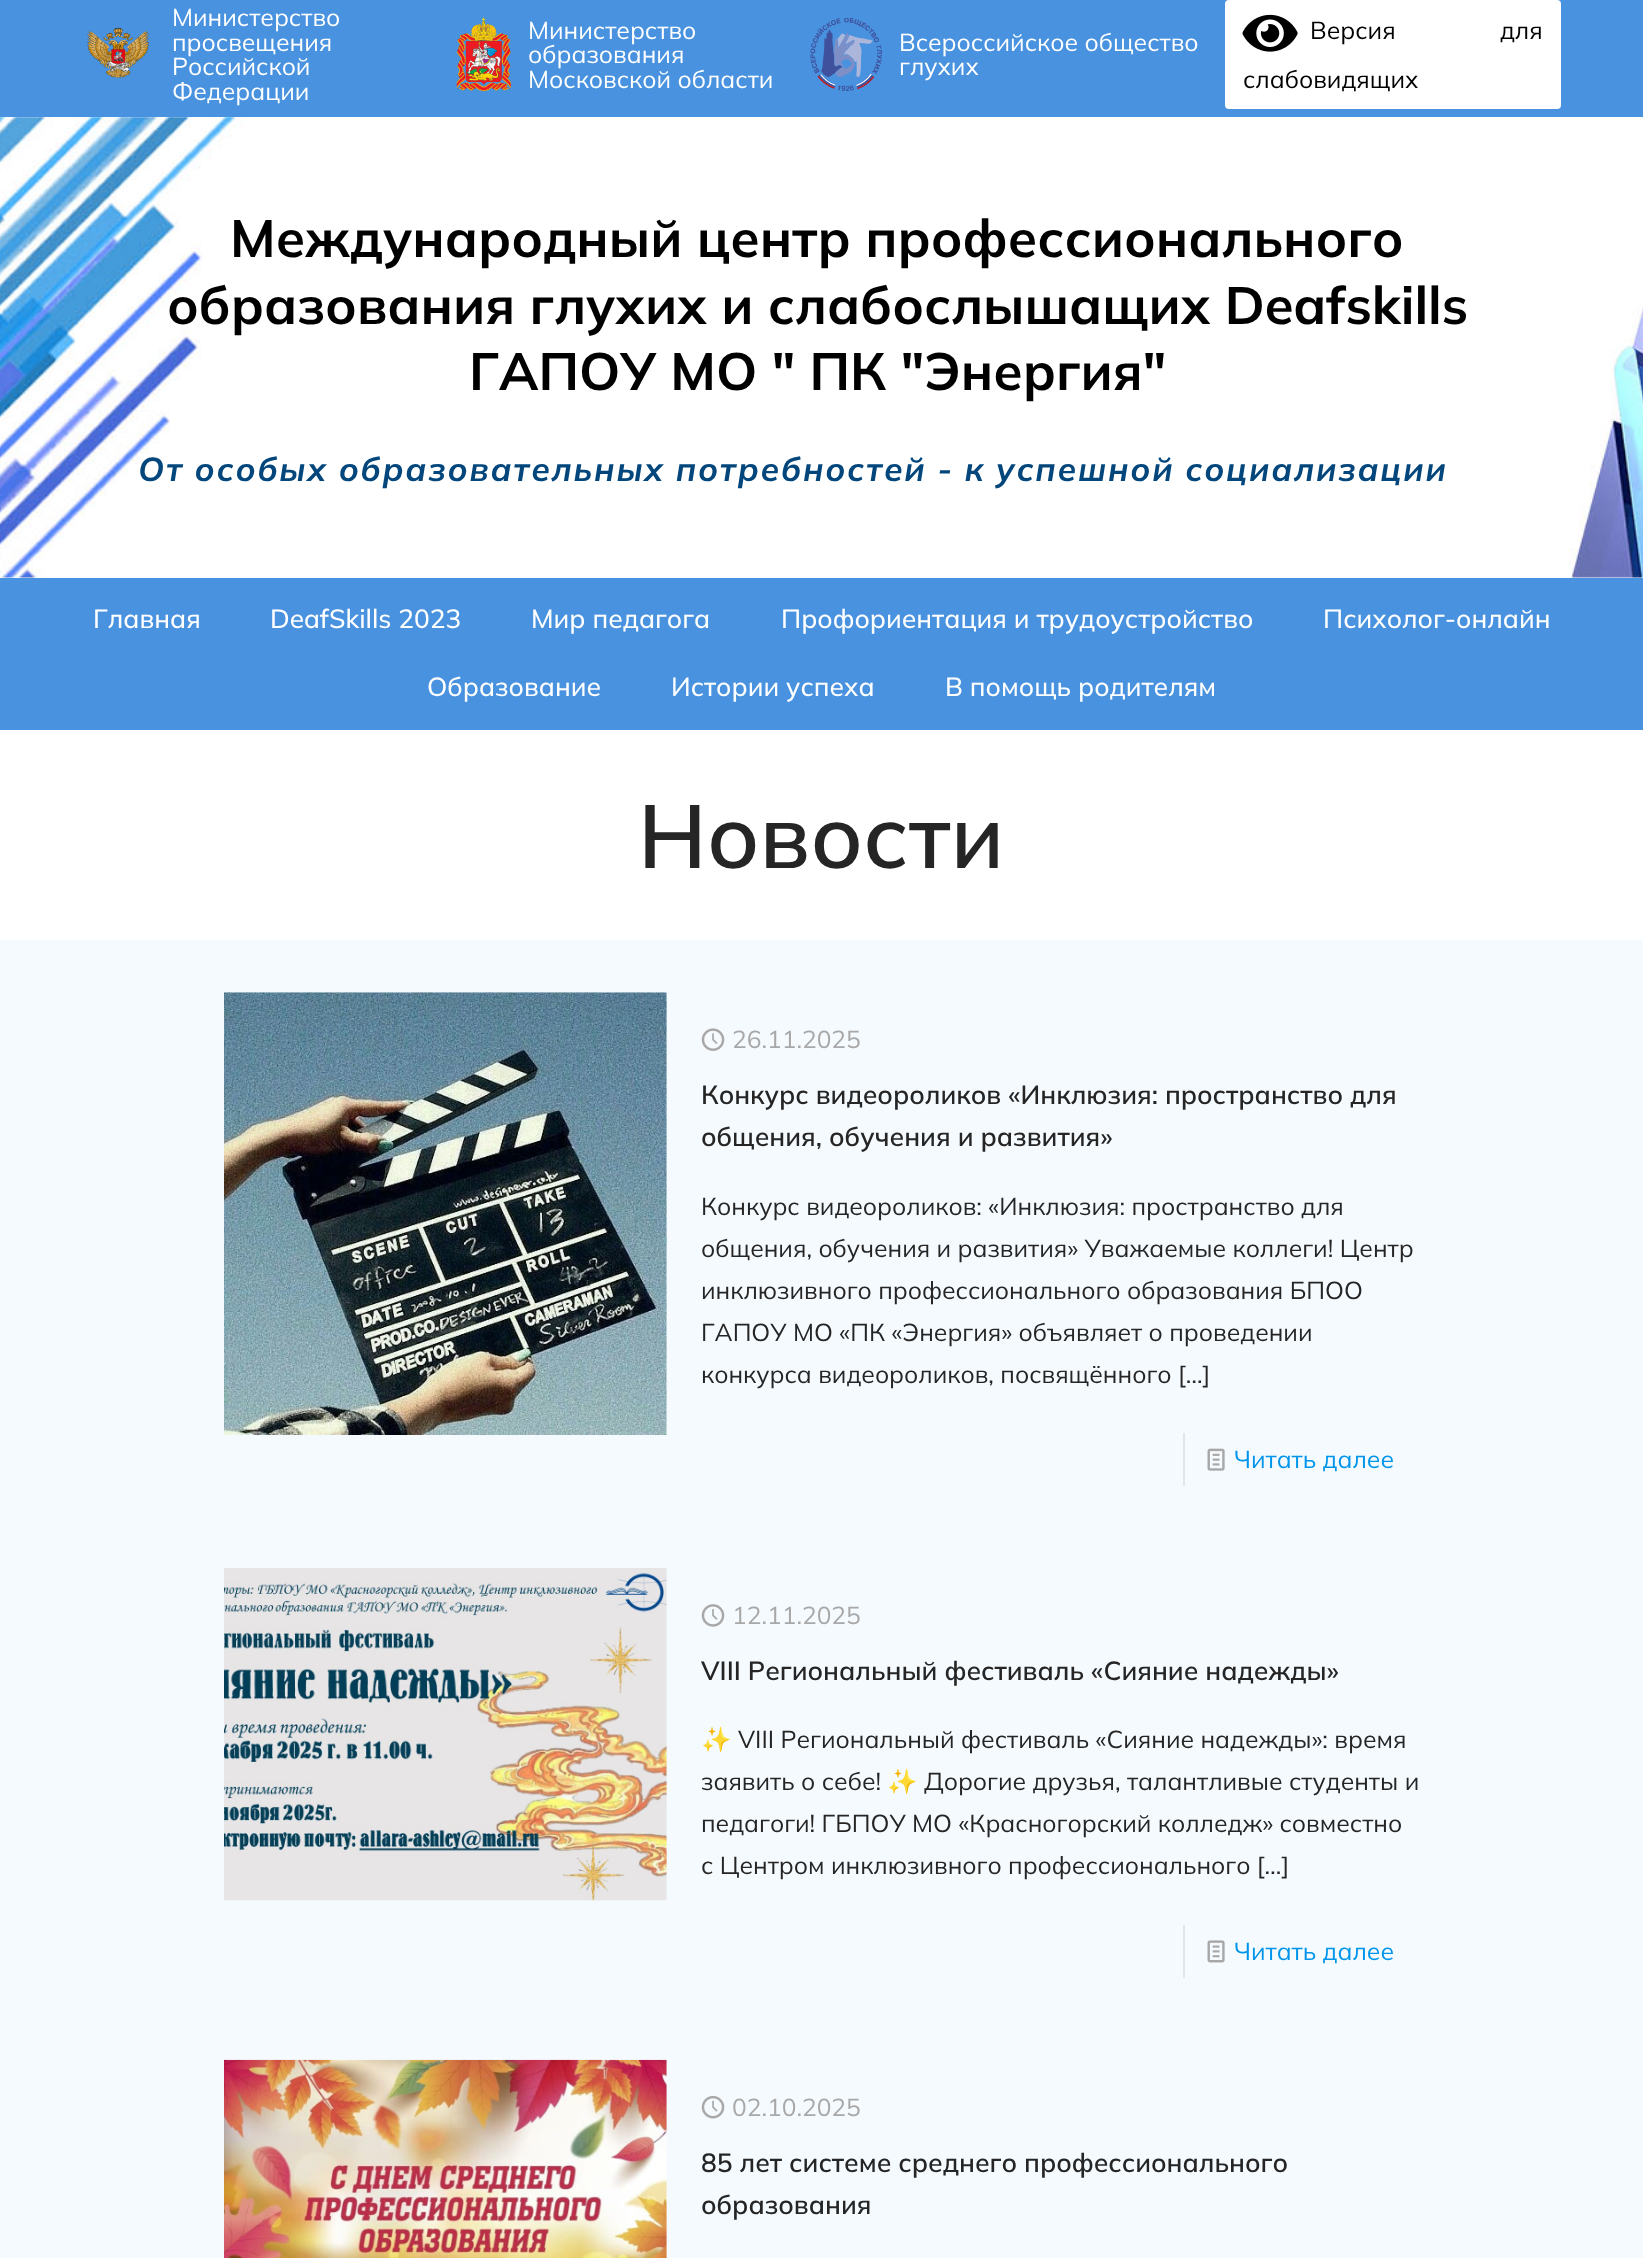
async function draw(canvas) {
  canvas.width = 1643;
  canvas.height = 2258;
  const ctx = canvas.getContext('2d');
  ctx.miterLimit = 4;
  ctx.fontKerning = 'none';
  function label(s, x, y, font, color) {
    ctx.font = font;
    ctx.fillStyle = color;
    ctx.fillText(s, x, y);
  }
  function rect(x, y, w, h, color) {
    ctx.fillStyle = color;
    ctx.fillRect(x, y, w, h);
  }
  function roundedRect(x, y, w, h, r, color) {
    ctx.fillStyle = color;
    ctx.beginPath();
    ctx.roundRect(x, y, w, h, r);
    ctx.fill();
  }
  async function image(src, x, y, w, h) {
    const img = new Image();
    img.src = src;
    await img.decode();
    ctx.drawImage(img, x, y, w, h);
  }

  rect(0, 0, 1643, 2258, '#f5fafe');
  rect(0, 0, 1643, 117, '#4892df');
  await image('assets/img1.png', 87, 27, 62, 51);
  label('Министерство', 172, 26, '24.5px Mulish', '#fff');
  label('просвещения', 172, 51, '24.5px Mulish', '#fff');
  label('Российской', 172, 75, '24.5px Mulish', '#fff');
  label('Федерации', 172, 100, '24.5px Mulish', '#fff');
  await image('assets/img2.png', 456, 17, 55, 74);
  label('Министерство', 528, 39, '24.5px Mulish', '#fff');
  label('образования', 528, 63, '24.5px Mulish', '#fff');
  label('Московской области', 528, 88, '24.5px Mulish', '#fff');
  await image('assets/img3.png', 810, 18, 72, 73);
  label('Всероссийское общество', 899, 51, '24.5px Mulish', '#fff');
  label('глухих', 899, 75, '24.5px Mulish', '#fff');
  roundedRect(1225, 0, 336, 109, 4, '#fff');
  await image('assets/img4.png', 1242, 14, 56, 38);
  ctx.wordSpacing = '98px';
  label('Версия для', 1310, 39, '24.5px Mulish', '#000');
  ctx.wordSpacing = '0px';
  label('слабовидящих', 1243, 88, '24.5px Mulish', '#000');
  await image('assets/img5.png', 0, 117, 1643, 461);
  label('Международный центр профессионального', 230, 257, 'bold 52.5px Mulish', '#000');
  label('образования глухих и слабослышащих Deafskills', 167, 324, 'bold 52.5px Mulish', '#000');
  label('ГАПОУ МО " ПК "Энергия"', 469, 390, 'bold 52.5px Mulish', '#000');
  ctx.letterSpacing = '1.75px';
  label('От особых образовательных потребностей - к успешной социализации', 138, 481, 'italic bold 33.25px Mulish', '#02467c');
  rect(0, 578, 1643, 152, '#4892df');
  ctx.letterSpacing = '0px';
  label('Главная', 93, 628, '500 26.25px Mulish', '#fff');
  label('DeafSkills 2023', 270, 628, '500 26.25px Mulish', '#fff');
  label('Мир педагога', 531, 628, '500 26.25px Mulish', '#fff');
  label('Профориентация и трудоустройство', 781, 628, '500 26.25px Mulish', '#fff');
  label('Психолог-онлайн', 1323, 628, '500 26.25px Mulish', '#fff');
  label('Образование', 427, 696, '500 26.25px Mulish', '#fff');
  label('Истории успеха', 671, 696, '500 26.25px Mulish', '#fff');
  label('В помощь родителям', 945, 696, '500 26.25px Mulish', '#fff');
  rect(0, 730, 1643, 210, '#fff');
  label('Новости', 638, 868, '600 89.25px Mulish', '#252525');
  await image('assets/img6.png', 224, 992, 443, 443);
  await image('assets/img7.png', 701, 1028, 24, 23);
  label('26.11.2025', 732, 1048, '24.5px Mulish', '#a8a8a8');
  label('Конкурс видеороликов «Инклюзия: пространство для', 701, 1104, '600 26.25px Mulish', '#252525');
  label('общения, обучения и развития»', 701, 1146, '600 26.25px Mulish', '#252525');
  label('Конкурс видеороликов: «Инклюзия: пространство для', 701, 1215, '24.5px Mulish', '#252525');
  label('общения, обучения и развития» Уважаемые коллеги! Центр', 701, 1257, '24.5px Mulish', '#252525');
  label('инклюзивного профессионального образования БПОО', 701, 1299, '24.5px Mulish', '#252525');
  label('ГАПОУ МО «ПК «Энергия» объявляет о проведении', 701, 1341, '24.5px Mulish', '#252525');
  label('конкурса видеороликов, посвящённого […]', 701, 1383, '24.5px Mulish', '#252525');
  rect(1183, 1433, 2, 53, '#e1e6ea');
  await image('assets/img8.png', 1207, 1448, 18, 23);
  label('Читать далее', 1234, 1468, '24.5px Mulish', '#0095eb');
  await image('assets/img9.png', 224, 1568, 443, 333);
  await image('assets/img10.png', 701, 1604, 24, 23);
  label('12.11.2025', 732, 1624, '24.5px Mulish', '#a8a8a8');
  label('VIII Региональный фестиваль «Сияние надежды»', 701, 1680, '600 26.25px Mulish', '#252525');
  label('✨', 701, 1748, '24.5px Noto Color Emoji', '#252525');
  label('VIII Региональный фестиваль «Сияние надежды»: время', 738, 1748, '24.5px Mulish', '#252525');
  label('заявить о себе!', 701, 1790, '24.5px Mulish', '#252525');
  label('✨', 887, 1790, '24.5px Noto Color Emoji', '#252525');
  label('Дорогие друзья, талантливые студенты и', 924, 1790, '24.5px Mulish', '#252525');
  label('педагоги! ГБПОУ МО «Красногорский колледж» совместно', 701, 1832, '24.5px Mulish', '#252525');
  label('с Центром инклюзивного профессионального […]', 701, 1874, '24.5px Mulish', '#252525');
  rect(1183, 1925, 2, 53, '#e1e6ea');
  await image('assets/img11.png', 1207, 1940, 18, 23);
  label('Читать далее', 1234, 1960, '24.5px Mulish', '#0095eb');
  await image('assets/img12.png', 224, 2059, 443, 199);
  await image('assets/img13.png', 701, 2095, 24, 24);
  label('02.10.2025', 732, 2116, '24.5px Mulish', '#a8a8a8');
  label('85 лет системе среднего профессионального', 701, 2172, '600 26.25px Mulish', '#252525');
  label('образования', 701, 2214, '600 26.25px Mulish', '#252525');
}

draw(document.querySelector('canvas'));
